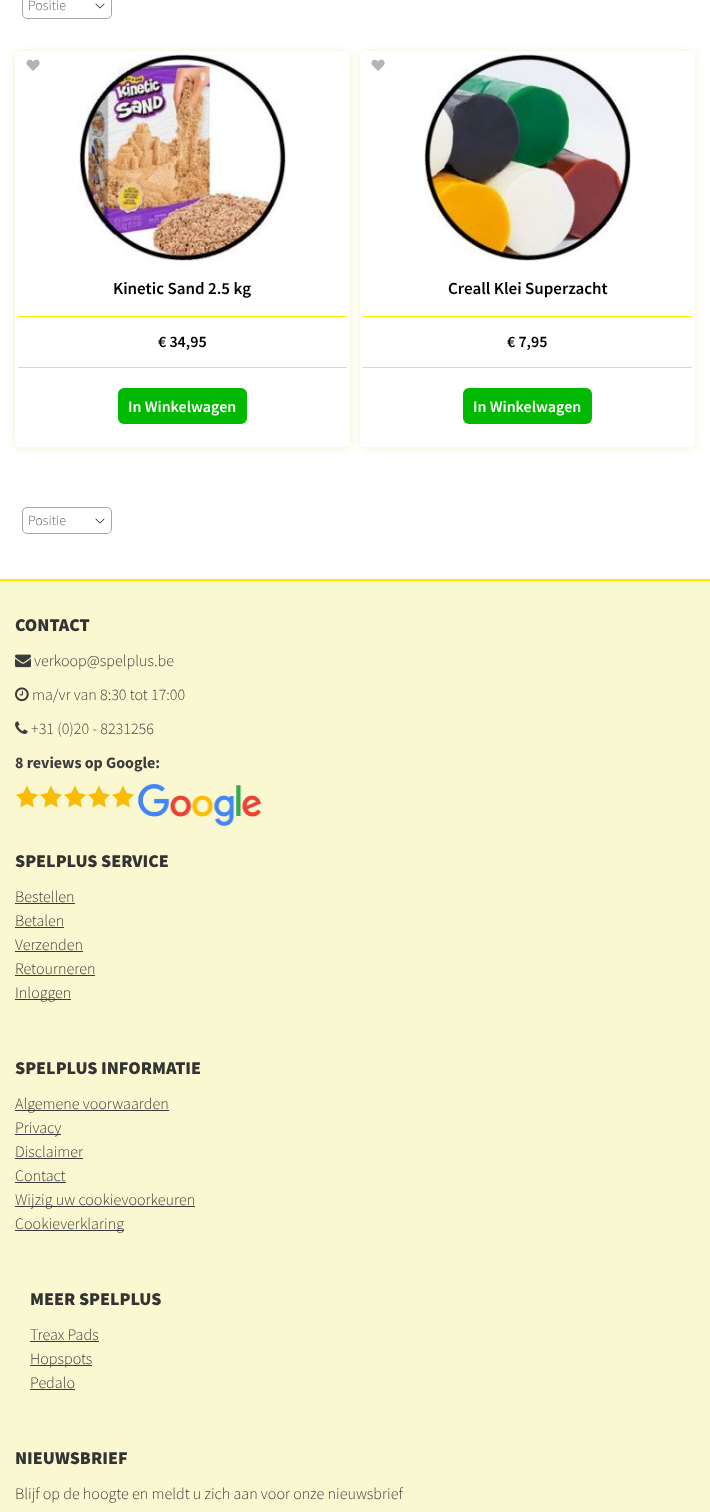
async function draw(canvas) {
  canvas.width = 710;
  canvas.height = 1512;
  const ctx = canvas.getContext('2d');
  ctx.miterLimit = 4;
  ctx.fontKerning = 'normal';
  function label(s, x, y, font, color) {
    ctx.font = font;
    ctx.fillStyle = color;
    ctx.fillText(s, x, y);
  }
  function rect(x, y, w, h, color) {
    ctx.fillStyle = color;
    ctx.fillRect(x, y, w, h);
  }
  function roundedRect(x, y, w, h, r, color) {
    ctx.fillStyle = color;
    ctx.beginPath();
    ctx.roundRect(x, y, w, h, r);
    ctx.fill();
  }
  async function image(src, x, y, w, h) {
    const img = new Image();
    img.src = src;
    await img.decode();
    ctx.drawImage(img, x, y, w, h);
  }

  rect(0, 0, 710, 1512, '#fff');
  await image('assets/img1.png', 95, 3, 10, 6);
  ctx.beginPath();
  ctx.roundRect(22.5, -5.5, 89, 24, 4.5);
  ctx.strokeStyle = '#a6a6a6';
  ctx.stroke();
  label('Positie', 28, 10, '300 14px Source Sans Pro', '#636363');
  ctx.fillStyle = '#f2efce';
  ctx.filter = 'blur(4px)';
  ctx.beginPath();
  ctx.roundRect(15, 52, 335, 396, 5);
  ctx.fill();
  ctx.filter = 'none';
  roundedRect(15, 51, 335, 396, 5, '#fff');
  await image('assets/img2.png', 26, 59, 14, 12);
  await image('assets/img3.png', 79, 54, 207, 207);
  label('Kinetic Sand 2.5 kg', 113, 294, '600 17px Source Sans Pro', '#000');
  rect(18, 316, 329, 1, '#ffed00');
  rect(18, 367, 329, 1, '#ffed00');
  label('€ 34,95', 158, 347, '600 16px Source Sans Pro', '#000');
  roundedRect(118, 388, 129, 36, 6, '#02b902');
  label('In Winkelwagen', 128, 412, '600 16px Source Sans Pro', '#fff');
  ctx.fillStyle = '#f2efce';
  ctx.filter = 'blur(4px)';
  ctx.beginPath();
  ctx.roundRect(360, 52, 335, 396, 5);
  ctx.fill();
  ctx.filter = 'none';
  roundedRect(360, 51, 335, 396, 5, '#fff');
  await image('assets/img2.png', 371, 59, 14, 12);
  await image('assets/img4.png', 424, 54, 207, 207);
  label('Creall Klei Superzacht', 448, 294, '600 17px Source Sans Pro', '#000');
  rect(363, 316, 329, 1, '#ffed00');
  rect(363, 367, 329, 1, '#ffed00');
  label('€ 7,95', 507, 347, '600 16px Source Sans Pro', '#000');
  roundedRect(463, 388, 129, 36, 6, '#02b902');
  label('In Winkelwagen', 473, 412, '600 16px Source Sans Pro', '#fff');
  await image('assets/img1.png', 95, 518, 10, 6);
  ctx.beginPath();
  ctx.roundRect(22.5, 507.5, 89, 26, 4.5);
  ctx.stroke();
  label('Positie', 28, 525, '300 14px Source Sans Pro', '#636363');
  rect(0, 581, 710, 931, '#faf8d0');
  rect(0, 579, 710, 2, '#ffed00');
  label('CONTACT', 15, 631, '900 18px Source Sans Pro', '#333');
  await image('assets/img5.png', 15, 654, 16, 14);
  label('verkoop@spelplus.be', 34, 666, '300 16px Source Sans Pro', '#3b3b3b');
  await image('assets/img6.png', 15, 687, 14, 15);
  label('ma/vr van 8:30 tot 17:00', 32, 700, '300 16px Source Sans Pro', '#3b3b3b');
  await image('assets/img7.png', 15, 721, 13, 13);
  label('+31 (0)20 - 8231256', 31, 734, '300 16px Source Sans Pro', '#3b3b3b');
  label('8 reviews op Google:', 15, 768, 'bold 16px Source Sans Pro', '#3b3b3b');
  await image('assets/img8.png', 16, 785, 22, 23);
  await image('assets/img8.png', 40, 785, 22, 23);
  await image('assets/img8.png', 64, 785, 22, 23);
  await image('assets/img8.png', 88, 785, 22, 23);
  await image('assets/img8.png', 112, 785, 22, 23);
  await image('assets/img9.png', 138, 784, 124, 42);
  label('SPELPLUS SERVICE', 15, 867, '900 18px Source Sans Pro', '#333');
  label('Bestellen', 15, 902, '300 16px Source Sans Pro', '#3b3b3b');
  rect(15, 903, 60, 1, '#3b3b3b');
  label('Betalen', 15, 926, '300 16px Source Sans Pro', '#3b3b3b');
  rect(15, 927, 49, 1, '#3b3b3b');
  label('Verzenden', 15, 950, '300 16px Source Sans Pro', '#3b3b3b');
  rect(15, 951, 68, 1, '#3b3b3b');
  label('Retourneren', 15, 974, '300 16px Source Sans Pro', '#3b3b3b');
  rect(15, 975, 80, 1, '#3b3b3b');
  rect(15, 999, 56, 1, '#3b3b3b');
  label('Inloggen', 15, 998, '300 16px Source Sans Pro', '#3b3b3b');
  label('SPELPLUS INFORMATIE', 15, 1074, '900 18px Source Sans Pro', '#333');
  rect(15, 1110, 154, 1, '#3b3b3b');
  label('Algemene voorwaarden', 15, 1109, '300 16px Source Sans Pro', '#3b3b3b');
  rect(15, 1134, 46, 1, '#3b3b3b');
  label('Privacy', 15, 1133, '300 16px Source Sans Pro', '#3b3b3b');
  label('Disclaimer', 15, 1157, '300 16px Source Sans Pro', '#3b3b3b');
  rect(15, 1158, 68, 1, '#3b3b3b');
  label('Contact', 15, 1181, '300 16px Source Sans Pro', '#3b3b3b');
  rect(15, 1182, 51, 1, '#3b3b3b');
  rect(15, 1206, 180, 1, '#3b3b3b');
  label('Wijzig uw cookievoorkeuren', 15, 1205, '300 16px Source Sans Pro', '#3b3b3b');
  rect(15, 1230, 109, 1, '#3b3b3b');
  label('Cookieverklaring', 15, 1229, '300 16px Source Sans Pro', '#3b3b3b');
  label('MEER SPELPLUS', 30, 1305, '900 18px Source Sans Pro', '#333');
  label('Treax Pads', 30, 1340, '300 16px Source Sans Pro', '#3b3b3b');
  rect(30, 1341, 69, 1, '#3b3b3b');
  rect(30, 1365, 62, 1, '#3b3b3b');
  label('Hopspots', 30, 1364, '300 16px Source Sans Pro', '#3b3b3b');
  label('Pedalo', 30, 1388, '300 16px Source Sans Pro', '#3b3b3b');
  rect(30, 1389, 45, 1, '#3b3b3b');
  label('NIEUWSBRIEF', 15, 1464, '900 18px Source Sans Pro', '#333');
  label('Blijf op de hoogte en meldt u zich aan voor onze nieuwsbrief', 15, 1499, '300 16px Source Sans Pro', '#3b3b3b');
}

draw(document.querySelector('canvas'));
